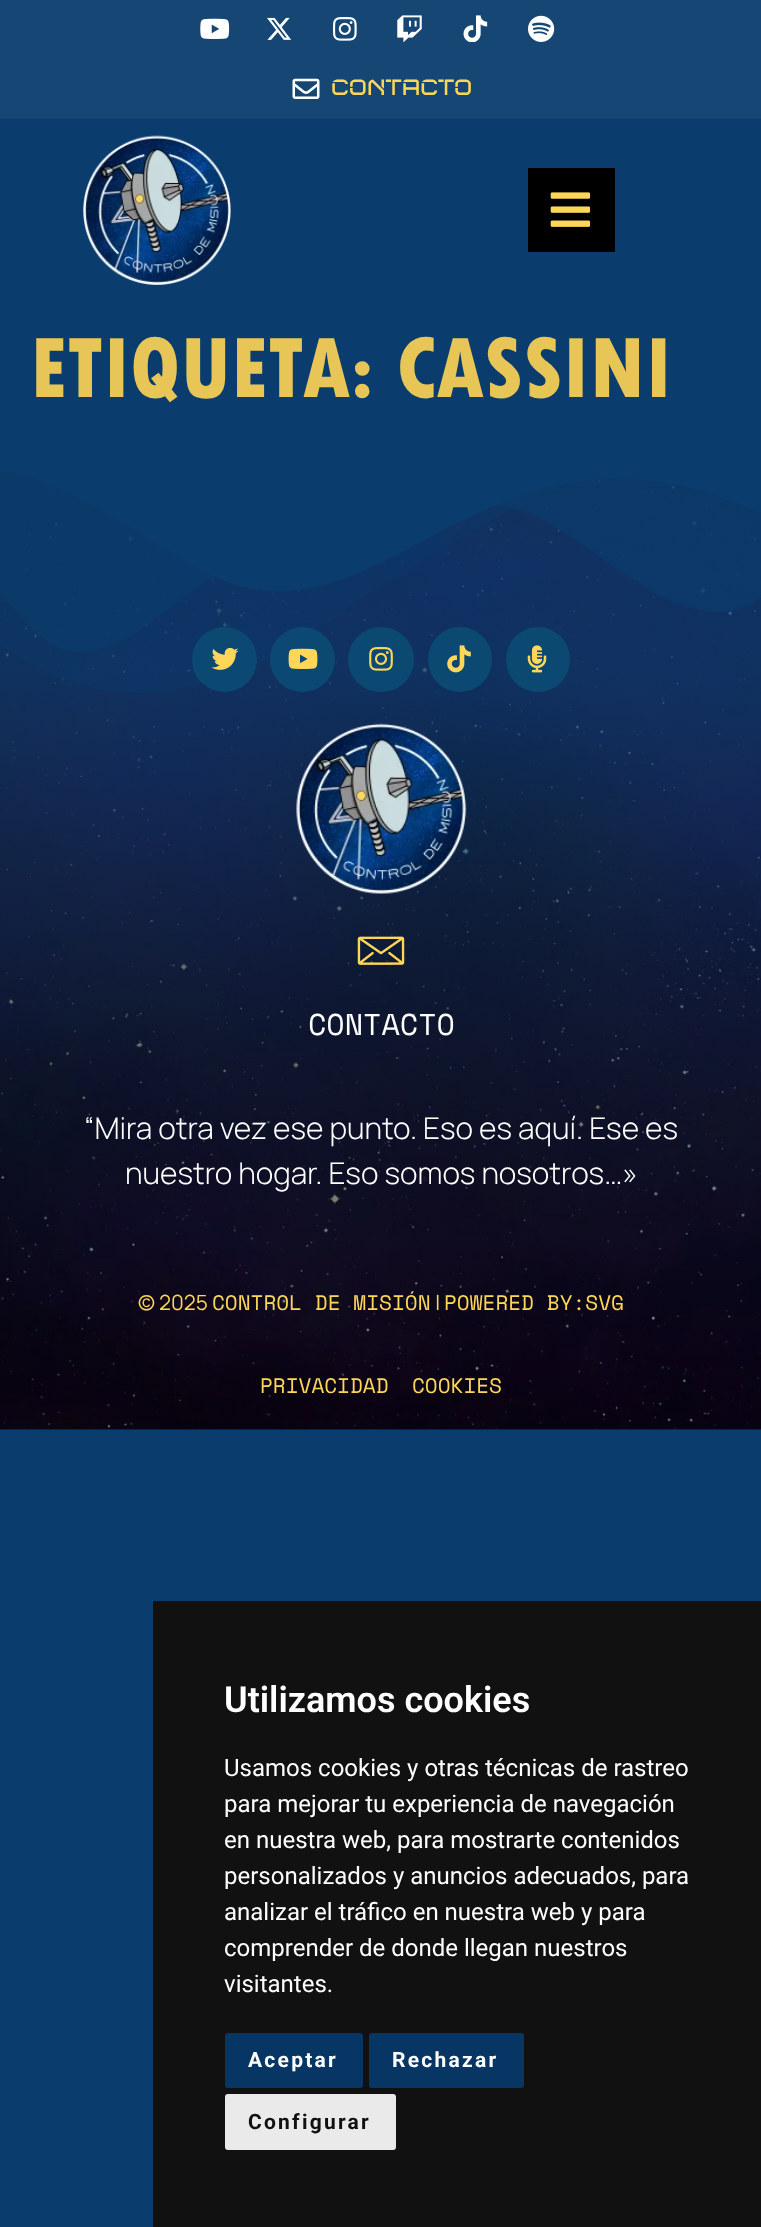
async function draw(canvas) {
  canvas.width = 761;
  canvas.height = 2227;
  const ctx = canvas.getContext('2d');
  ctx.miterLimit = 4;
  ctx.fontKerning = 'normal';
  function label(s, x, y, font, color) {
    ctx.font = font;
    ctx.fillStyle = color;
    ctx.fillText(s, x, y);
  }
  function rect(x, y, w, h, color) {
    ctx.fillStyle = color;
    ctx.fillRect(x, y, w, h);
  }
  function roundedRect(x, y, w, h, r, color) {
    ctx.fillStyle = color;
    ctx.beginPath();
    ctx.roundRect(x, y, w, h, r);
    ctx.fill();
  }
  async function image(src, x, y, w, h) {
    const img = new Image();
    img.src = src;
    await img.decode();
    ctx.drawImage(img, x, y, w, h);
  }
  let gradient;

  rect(0, 0, 761, 2227, '#0a3d6d');
  rect(0, 0, 761, 119, '#164774');
  await image('assets/img1.png', 200, 18, 30, 21);
  await image('assets/img2.png', 267, 17, 25, 23);
  await image('assets/img3.png', 333, 17, 24, 24);
  await image('assets/img4.png', 397, 15, 25, 27);
  await image('assets/img5.png', 463, 15, 25, 27);
  await image('assets/img6.png', 528, 15, 27, 27);
  await image('assets/img7.png', 292, 78, 28, 21);
  label('CONTACTO', 331, 95, '21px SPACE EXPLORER', '#ffd758');
  await image('assets/img8.png', 83, 135, 148, 150);
  rect(528, 168, 87, 84, '#000');
  await image('assets/img9.png', 550, 192, 41, 35);
  label('ETIQUETA: CASSINI', 30, 397, '800 90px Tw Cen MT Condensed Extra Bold', '#e7c556');
  await image('assets/img10.png', 0, 471, 761, 959);
  gradient = ctx.createLinearGradient(381, 447, 381, 1430);
  gradient.addColorStop(0.23, '#0a3d6dbd');
  gradient.addColorStop(1, '#0a051c40');
  ctx.fillStyle = gradient;
  ctx.fillRect(0, 471, 761, 959);
  await image('assets/img11.png', 0, 447, 761, 246);
  ctx.fillStyle = '#0c4972';
  ctx.beginPath();
  ctx.arc(224.5, 659.5, 32.5, 0, 2 * Math.PI);
  ctx.fill();
  await image('assets/img12.png', 211, 647, 28, 23);
  ctx.beginPath();
  ctx.arc(302.5, 659.5, 32.5, 0, 2 * Math.PI);
  ctx.fill();
  await image('assets/img13.png', 288, 648, 30, 21);
  roundedRect(348, 627, 66, 65, 32.5, '#0c4972');
  await image('assets/img14.png', 369, 647, 24, 24);
  roundedRect(428, 627, 64, 65, 32, '#0c4972');
  await image('assets/img15.png', 447, 645, 24, 28);
  roundedRect(506, 627, 64, 65, 32, '#0c4972');
  await image('assets/img16.png', 527, 645, 20, 28);
  await image('assets/img17.png', 296, 723, 171, 171);
  await image('assets/img18.png', 357, 936, 48, 29);
  label('CONTACTO', 308, 1035, '30px Space Mono', '#fff');
  label('“Mira otra vez ese punto. Eso es aquí. Ese es', 84, 1139, '300 30px Manrope', '#fff');
  label('nuestro hogar. Eso somos nosotros…»', 125, 1184, '300 30px Manrope', '#fff');
  label('© 2025', 138, 1310, '21px Manrope', '#ffd758');
  label('CONTROL DE MISIÓN', 212, 1310, '21px Space Mono', '#ffd758');
  label('|', 435, 1310, '21px Manrope', '#ffd758');
  label('POWERED BY:SVG', 444, 1310, '21px Space Mono', '#ffd758');
  label('PRIVACIDAD', 260, 1393, '21px Space Mono', '#ffd758');
  label('COOKIES', 412, 1393, '21px Space Mono', '#ffd758');
  rect(153, 1601, 608, 626, '#111');
  label('Utilizamos cookies', 224, 1712, '600 36px Roboto', '#fff');
  label('Usamos cookies y otras técnicas de rastreo', 224, 1776, '24px Roboto', '#fff');
  label('para mejorar tu experiencia de navegación', 224, 1812, '24px Roboto', '#fff');
  label('en nuestra web, para mostrarte contenidos', 224, 1848, '24px Roboto', '#fff');
  label('personalizados y anuncios adecuados, para', 224, 1884, '24px Roboto', '#fff');
  label('analizar el tráfico en nuestra web y para', 224, 1920, '24px Roboto', '#fff');
  label('comprender de donde llegan nuestros', 224, 1956, '24px Roboto', '#fff');
  label('visitantes.', 224, 1992, '24px Roboto', '#fff');
  roundedRect(225, 2033, 138, 55, 3, '#073665');
  ctx.letterSpacing = '2.25px';
  label('Aceptar', 248, 2067, 'bold 21px Roboto', '#fff');
  roundedRect(369, 2033, 155, 55, 3, '#073665');
  label('Rechazar', 392, 2067, 'bold 21px Roboto', '#fff');
  roundedRect(225, 2094, 171, 56, 3, '#eaeaea');
  label('Configurar', 248, 2129, 'bold 21px Roboto', '#111');
}

draw(document.querySelector('canvas'));
